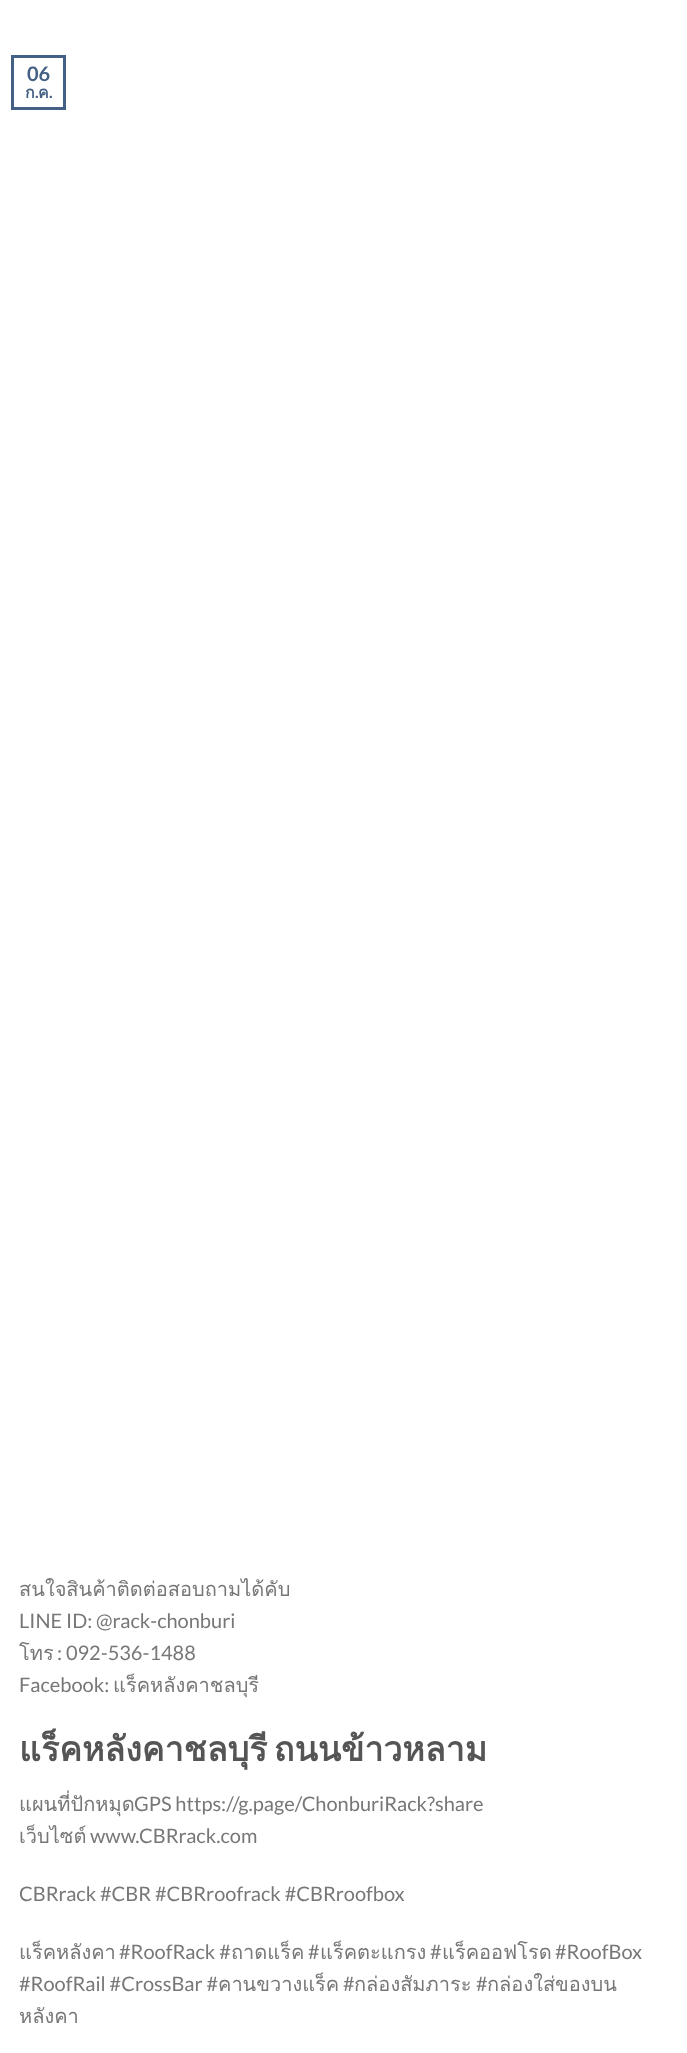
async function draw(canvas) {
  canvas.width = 687;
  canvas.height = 2053;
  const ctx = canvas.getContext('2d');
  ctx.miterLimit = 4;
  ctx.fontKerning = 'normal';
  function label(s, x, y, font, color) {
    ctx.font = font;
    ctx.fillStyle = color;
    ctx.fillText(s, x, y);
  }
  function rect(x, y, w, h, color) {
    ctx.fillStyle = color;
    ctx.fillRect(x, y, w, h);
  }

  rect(0, 0, 687, 2053, '#fff');
  ctx.strokeStyle = '#446084';
  ctx.lineWidth = 3;
  ctx.strokeRect(12.5, 56.5, 52, 52);
  label('06', 27, 81, 'bold 20px Lato', '#446084');
  label('ก', 25, 98, 'bold 16px Loma', '#446084');
  label('.', 35, 98, 'bold 16px Lato', '#446084');
  label('ค', 38, 98, 'bold 16px Loma', '#446084');
  label('.', 49, 98, 'bold 16px Lato', '#446084');
  label('สนใจสินค้าติดต่อสอบถามได้คับ', 19, 1596, '20px Loma', '#777');
  label('LINE ID: @rack-chonburi', 19, 1628, '20px Lato', '#777');
  label('โทร', 19, 1660, '20px Loma', '#777');
  label(': 092-536-1488', 57, 1660, '20px Lato', '#777');
  label('Facebook:', 19, 1692, '20px Lato', '#777');
  label('แร็คหลังคาชลบุรี', 113, 1692, '20px Loma', '#777');
  ctx.wordSpacing = '-5px';
  label('แร็คหลังคาชลบุรี ถนนข้าวหลาม', 19, 1761, 'bold 34px Loma', '#555');
  ctx.wordSpacing = '0px';
  label('แผนที่ปักหมุด', 19, 1811, '20px Loma', '#777');
  label('GPS https://g.page/ChonburiRack?share', 134, 1811, '20px Lato', '#777');
  label('เว็บไซต์', 19, 1843, '20px Loma', '#777');
  label('www.CBRrack.com', 90, 1843, '20px Lato', '#777');
  label('CBRrack #CBR #CBRroofrack #CBRroofbox', 19, 1901, '20px Lato', '#777');
  label('แร็คหลังคา', 19, 1959, '20px Loma', '#777');
  label('#RoofRack #', 119, 1959, '20px Lato', '#777');
  label('ถาดแร็ค', 231, 1959, '20px Loma', '#777');
  label('#', 308, 1959, '20px Lato', '#777');
  label('แร็คตะแกรง', 320, 1959, '20px Loma', '#777');
  label('#', 430, 1959, '20px Lato', '#777');
  label('แร็คออฟโรด', 442, 1959, '20px Loma', '#777');
  label('#RoofBox', 555, 1959, '20px Lato', '#777');
  label('#RoofRail #CrossBar #', 19, 1991, '20px Lato', '#777');
  label('คานขวางแร็ค', 218, 1991, '20px Loma', '#777');
  label('#', 343, 1991, '20px Lato', '#777');
  label('กล่องสัมภาระ', 354, 1991, '20px Loma', '#777');
  label('#', 476, 1991, '20px Lato', '#777');
  label('กล่องใส่ของบน', 487, 1991, '20px Loma', '#777');
  label('หลังคา', 19, 2023, '20px Loma', '#777');
}

draw(document.querySelector('canvas'));
